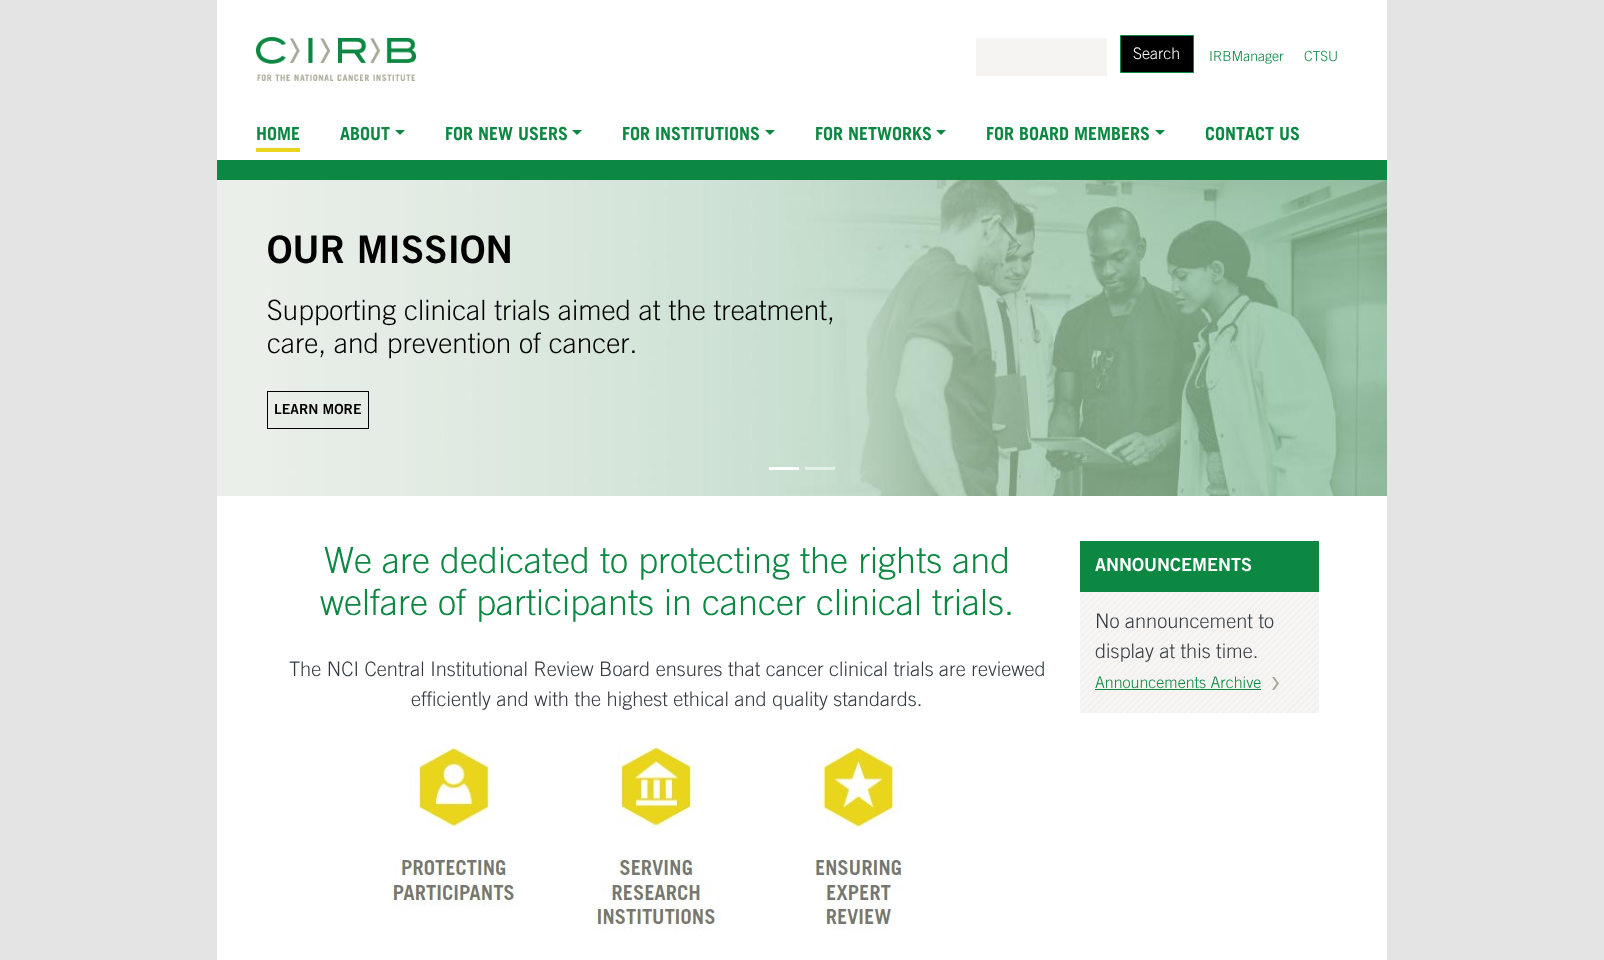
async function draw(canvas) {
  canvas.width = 1604;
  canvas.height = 960;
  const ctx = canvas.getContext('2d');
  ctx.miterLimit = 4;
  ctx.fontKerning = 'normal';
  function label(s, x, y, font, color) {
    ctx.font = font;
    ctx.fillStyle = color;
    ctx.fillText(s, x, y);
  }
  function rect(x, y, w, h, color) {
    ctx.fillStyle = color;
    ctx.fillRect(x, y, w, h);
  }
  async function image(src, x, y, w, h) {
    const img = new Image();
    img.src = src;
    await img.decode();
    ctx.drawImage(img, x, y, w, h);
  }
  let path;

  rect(0, 0, 1604, 960, '#e4e4e4');
  rect(217, 0, 1170, 160, '#fff');
  await image('assets/img1.png', 256, 37, 160, 44);
  rect(976, 38, 131, 38, '#f6f4f2');
  ctx.fillStyle = '#000';
  ctx.beginPath();
  ctx.rect(1120.5, 35.5, 73, 37);
  ctx.fill();
  ctx.strokeStyle = '#0d8843';
  ctx.stroke();
  label('Search', 1133, 59, '16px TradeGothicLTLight', '#fff');
  label('IRBManager', 1209, 61, '14px TradeGothicLTLight', '#0d8843');
  label('CTSU', 1304, 61, '14px TradeGothicLTLight', '#0d8843');
  rect(256, 148, 44, 4, '#ead51d');
  label('HOME', 256, 140, '18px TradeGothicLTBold', '#0d8843');
  label('ABOUT', 340, 140, '18px TradeGothicLTBold', '#0d8843');
  path = new Path2D('M395 130H405L400 135Z');
  ctx.fill(path);
  label('FOR NEW USERS', 445, 140, '18px TradeGothicLTBold', '#0d8843');
  path = new Path2D('M572 130H582L577 135Z');
  ctx.fill(path);
  label('FOR INSTITUTIONS', 622, 140, '18px TradeGothicLTBold', '#0d8843');
  path = new Path2D('M765 130H775L770 135Z');
  ctx.fill(path);
  label('FOR NETWORKS', 815, 140, '18px TradeGothicLTBold', '#0d8843');
  path = new Path2D('M936 130H946L941 135Z');
  ctx.fill(path);
  label('FOR BOARD MEMBERS', 986, 140, '18px TradeGothicLTBold', '#0d8843');
  path = new Path2D('M1155 130H1165L1160 135Z');
  ctx.fill(path);
  label('CONTACT US', 1205, 140, '18px TradeGothicLTBold', '#0d8843');
  rect(217, 496, 1170, 464, '#fff');
  rect(217, 160, 1170, 20, '#0d8843');
  await image('assets/img2.png', 217, 180, 1170, 316);
  label('OUR MISSION', 267, 263, '38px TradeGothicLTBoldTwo', '#000');
  label('Supporting clinical trials aimed at the treatment,', 267, 320, '28px TradeGothicLTLight', '#000');
  label('care, and prevention of cancer.', 267, 353, '28px TradeGothicLTLight', '#000');
  ctx.strokeStyle = '#000';
  ctx.strokeRect(267.5, 391.5, 101, 37);
  label('LEARN MORE', 274, 414, '14px TradeGothicLTBoldTwo', '#000');
  rect(769, 467, 30, 3, '#fff');
  rect(805, 467, 30, 3, '#ffffff80');
  label('We are dedicated to protecting the rights and', 324, 573, '36px TradeGothicLTLight', '#0d8843');
  label('welfare of participants in cancer clinical trials.', 320, 615, '36px TradeGothicLTLight', '#0d8843');
  label('The NCI Central Institutional Review Board ensures that cancer clinical trials are reviewed', 289, 676, '20px TradeGothicLTLight', '#343a40');
  label('efficiently and with the highest ethical and quality standards.', 411, 706, '20px TradeGothicLTLight', '#343a40');
  await image('assets/img3.png', 389, 746, 517, 185);
  rect(1080, 541, 239, 51, '#0d8843');
  label('ANNOUNCEMENTS', 1095, 571, '18px TradeGothicLTBoldTwo', '#fff');
  rect(1080, 592, 239, 121, '#f7f5f3');
  await image('assets/img4.png', 1080, 592, 239, 121);
  label('No announcement to', 1095, 628, '20px TradeGothicLTLight', '#343a40');
  label('display at this time.', 1095, 658, '20px TradeGothicLTLight', '#343a40');
  label('Announcements Archive', 1095, 688, '16px TradeGothicLTLight', '#0d8843');
  rect(1095, 689, 166, 1, '#0d8843');
  await image('assets/img5.png', 1272, 677, 7, 13);
}

draw(document.querySelector('canvas'));
